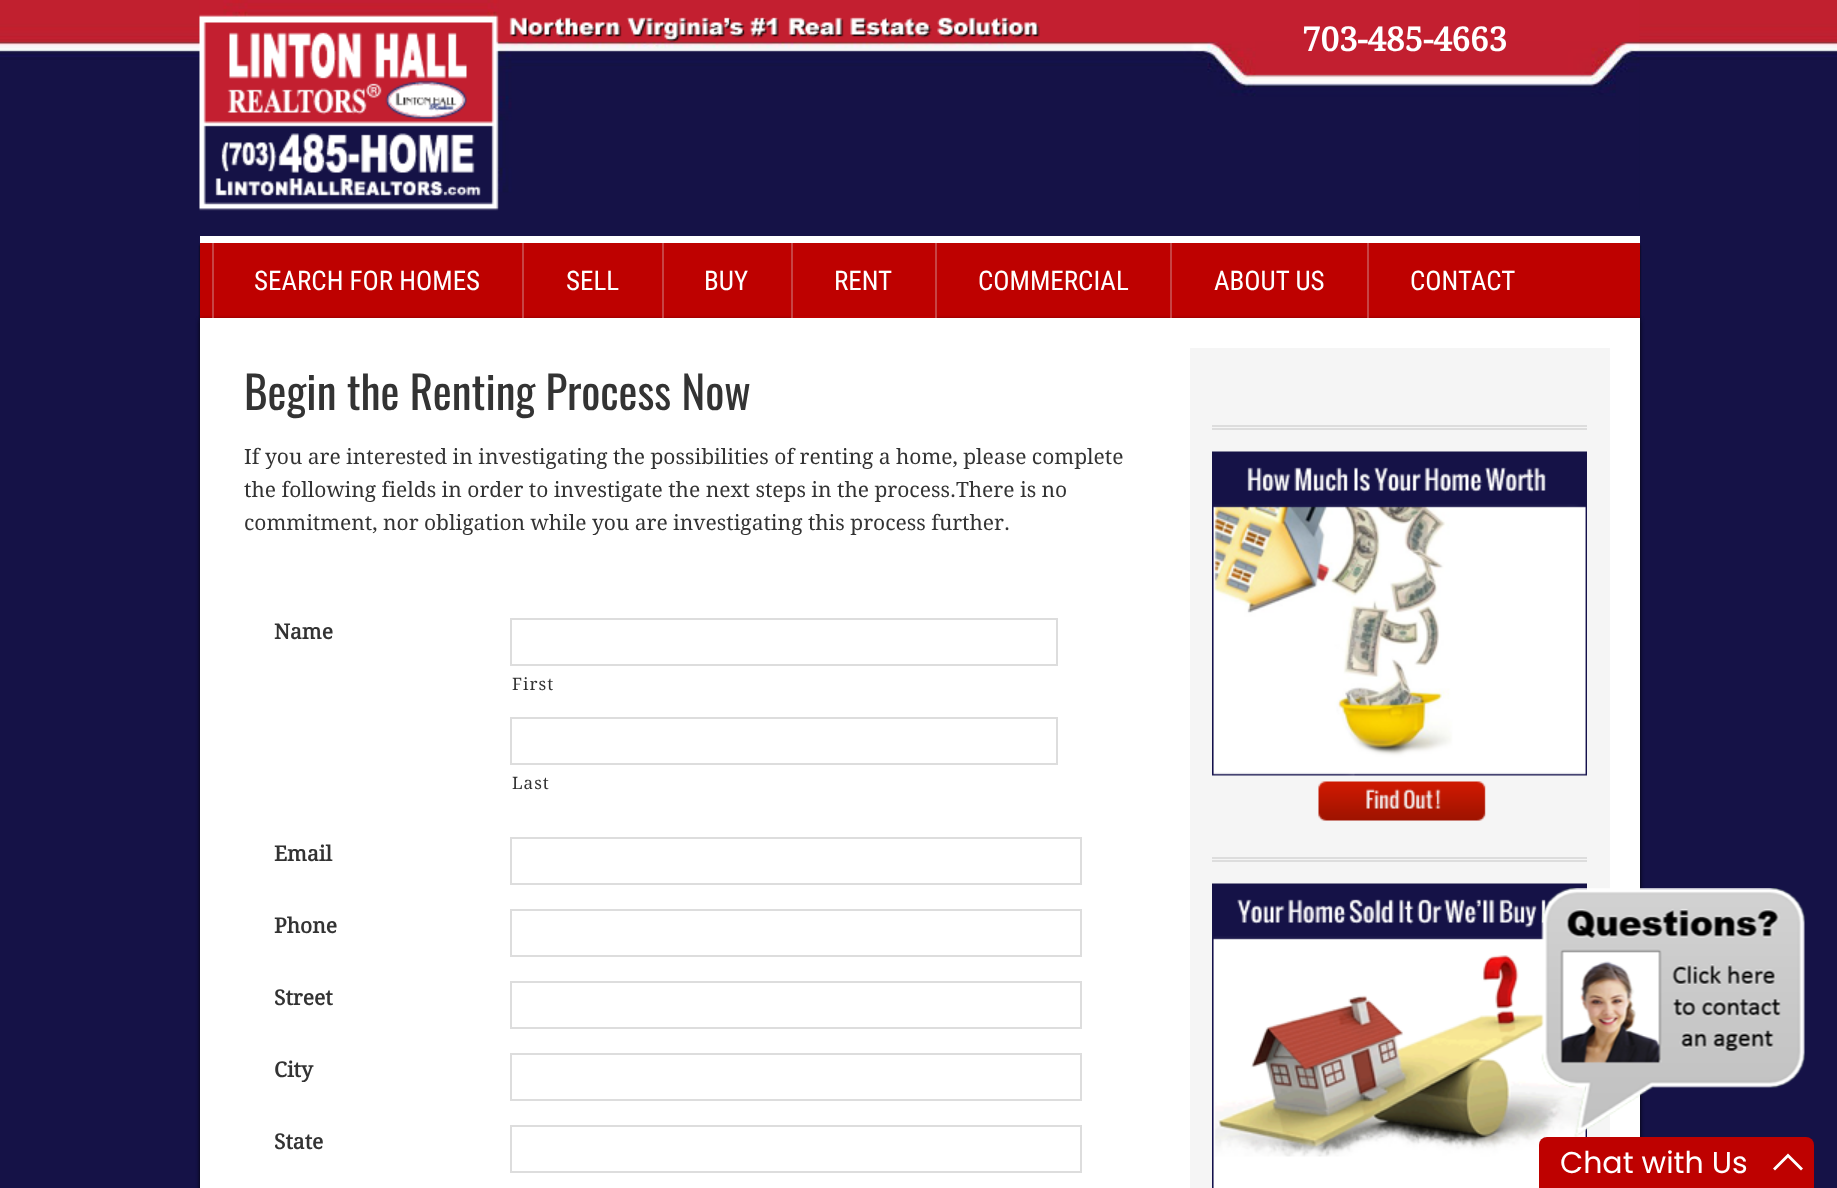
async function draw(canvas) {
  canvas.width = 1837;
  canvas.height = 1188;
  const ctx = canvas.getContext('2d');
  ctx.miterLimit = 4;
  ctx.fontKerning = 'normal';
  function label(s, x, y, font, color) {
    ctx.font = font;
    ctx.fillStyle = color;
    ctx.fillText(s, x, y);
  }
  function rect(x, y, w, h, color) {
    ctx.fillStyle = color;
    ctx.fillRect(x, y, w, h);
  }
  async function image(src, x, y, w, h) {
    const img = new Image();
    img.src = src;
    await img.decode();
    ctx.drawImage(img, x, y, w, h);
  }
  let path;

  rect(0, 0, 1837, 1188, '#151247');
  await image('assets/img1.png', 0, 0, 1837, 60);
  await image('assets/img2.png', 199, 0, 1441, 211);
  rect(200, 236, 1440, 7, '#fff');
  label('703-485-4663', 1302, 51, 'bold 33px Droid Serif', '#fff');
  ctx.fillStyle = '#000';
  ctx.filter = 'blur(1px)';
  ctx.beginPath();
  ctx.rect(200, 245, 1440, 75);
  ctx.fill();
  ctx.filter = 'none';
  rect(200, 243, 1440, 75, '#be0100');
  ctx.fillStyle = '#000';
  ctx.filter = 'blur(2px)';
  ctx.beginPath();
  ctx.rect(200, 320, 1440, 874);
  ctx.fill();
  ctx.filter = 'none';
  rect(212, 243, 2, 75, '#c74343');
  label('SEARCH FOR HOMES', 254, 290, '27px Roboto Condensed', '#fff');
  rect(522, 243, 2, 75, '#c74343');
  label('SELL', 566, 290, '27px Roboto Condensed', '#fff');
  rect(662, 243, 2, 75, '#c74343');
  label('BUY', 704, 290, '27px Roboto Condensed', '#fff');
  rect(793, 316, 142, 2, '#be0100');
  rect(791, 243, 2, 75, '#c74343');
  label('RENT', 834, 290, '27px Roboto Condensed', '#fff');
  rect(935, 243, 2, 75, '#c74343');
  label('COMMERCIAL', 978, 290, '27px Roboto Condensed', '#fff');
  rect(1170, 243, 2, 75, '#c74343');
  label('ABOUT US', 1214, 290, '27px Roboto Condensed', '#fff');
  rect(1367, 243, 2, 75, '#c74343');
  label('CONTACT', 1410, 290, '27px Roboto Condensed', '#fff');
  rect(200, 318, 1440, 870, '#fff');
  label('Begin the Renting Process Now', 244, 410, '45px Oswald', '#333');
  label('If you are interested in investigating the possibilities of renting a home, please complete', 244, 464, '21px Droid Serif', '#333');
  label('the following fields in order to investigate the next steps in the process.There is no', 244, 497, '21px Droid Serif', '#333');
  label('commitment, nor obligation while you are investigating this process further.', 244, 530, '21px Droid Serif', '#333');
  label('Name', 274, 639, 'bold 21px Droid Serif', '#333');
  ctx.strokeStyle = '#ddd';
  ctx.lineWidth = 2;
  ctx.strokeRect(511, 619, 546, 46);
  ctx.letterSpacing = '1px';
  label('First', 512, 690, '17px Droid Serif', '#333');
  ctx.strokeRect(511, 718, 546, 46);
  label('Last', 512, 789, '17px Droid Serif', '#333');
  ctx.letterSpacing = '0px';
  label('Email', 274, 861, 'bold 21px Droid Serif', '#333');
  ctx.strokeRect(511, 838, 570, 46);
  label('Phone', 274, 933, 'bold 21px Droid Serif', '#333');
  ctx.strokeRect(511, 910, 570, 46);
  label('Street', 274, 1005, 'bold 21px Droid Serif', '#333');
  ctx.strokeRect(511, 982, 570, 46);
  label('City', 274, 1077, 'bold 21px Droid Serif', '#333');
  ctx.strokeRect(511, 1054, 570, 46);
  label('State', 274, 1149, 'bold 21px Droid Serif', '#333');
  ctx.strokeRect(511, 1126, 570, 46);
  rect(1190, 348, 420, 840, '#f5f5f5');
  rect(1212, 425, 375, 2, '#ddd');
  rect(1212, 428, 375, 2, '#ddd');
  rect(1212, 857, 375, 2, '#ddd');
  rect(1212, 860, 375, 2, '#ddd');
  await image('assets/img3.png', 1212, 451, 375, 370);
  await image('assets/img4.png', 1212, 883, 375, 305);
  await image('assets/img5.png', 1541, 888, 264, 249);
  ctx.fillStyle = '#be0100';
  ctx.beginPath();
  ctx.roundRect(1539, 1137, 275, 51, [8, 8, 0, 0]);
  ctx.fill();
  label('Chat with Us', 1560, 1173, '30px Poppins', '#fff');
  path = new Path2D('M1788 1153.5L1803 1168.5L1801 1170.5L1788 1157.5L1775 1170.5L1773 1168.5Z');
  ctx.fill(path);
}

draw(document.querySelector('canvas'));
